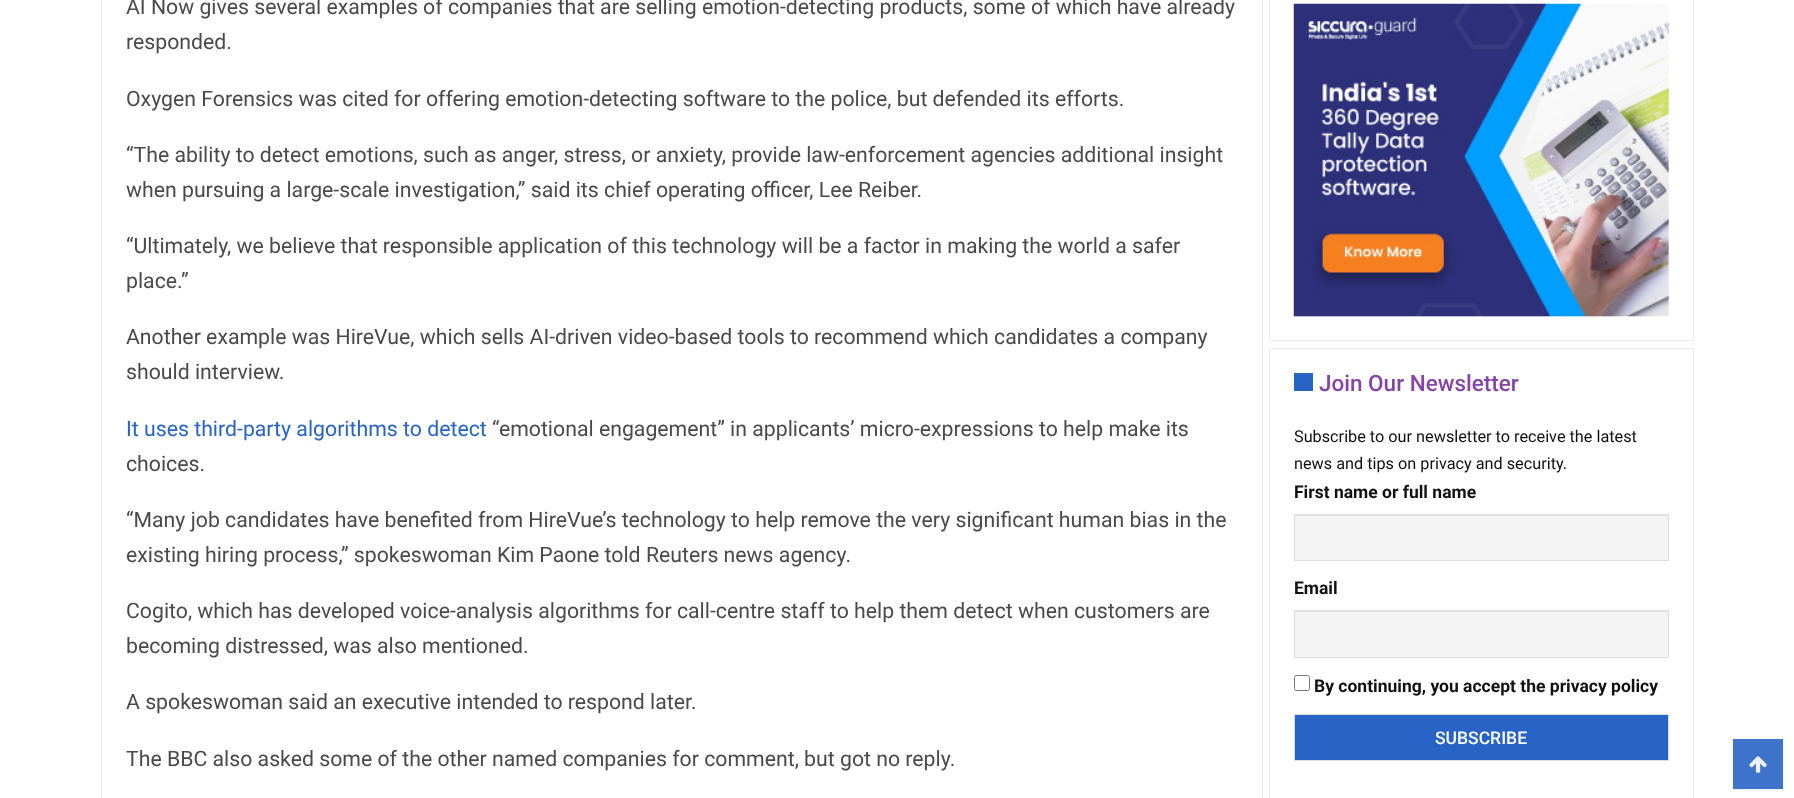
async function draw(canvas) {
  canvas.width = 1794;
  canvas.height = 798;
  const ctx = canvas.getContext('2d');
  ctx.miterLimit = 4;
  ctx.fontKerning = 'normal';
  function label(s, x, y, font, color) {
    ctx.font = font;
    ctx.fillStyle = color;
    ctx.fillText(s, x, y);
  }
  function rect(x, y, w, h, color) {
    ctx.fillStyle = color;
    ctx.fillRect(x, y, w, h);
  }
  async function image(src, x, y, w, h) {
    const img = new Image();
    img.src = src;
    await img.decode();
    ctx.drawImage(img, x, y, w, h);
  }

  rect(0, 0, 1794, 798, '#fff');
  ctx.strokeStyle = '#ebebeb';
  ctx.strokeRect(101.5, -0.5, 1161, 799);
  label('AI Now gives several examples of companies that are selling emotion-detecting products, some of which have already', 126, 14, '21.25px Roboto', '#4a4a4a');
  label('responded.', 126, 49, '21.25px Roboto', '#4a4a4a');
  label('Oxygen Forensics was cited for offering emotion-detecting software to the police, but defended its efforts.', 126, 106, '21.25px Roboto', '#4a4a4a');
  label('“The ability to detect emotions, such as anger, stress, or anxiety, provide law-enforcement agencies additional insight', 126, 162, '21.25px Roboto', '#4a4a4a');
  label('when pursuing a large-scale investigation,” said its chief operating officer, Lee Reiber.', 126, 197, '21.25px Roboto', '#4a4a4a');
  label('“Ultimately, we believe that responsible application of this technology will be a factor in making the world a safer', 126, 253, '21.25px Roboto', '#4a4a4a');
  label('place.”', 126, 288, '21.25px Roboto', '#4a4a4a');
  label('Another example was HireVue, which sells AI-driven video-based tools to recommend which candidates a company', 126, 344, '21.25px Roboto', '#4a4a4a');
  label('should interview.', 126, 379, '21.25px Roboto', '#4a4a4a');
  label('It uses third-party algorithms to detect', 126, 436, '21.25px Roboto', '#2863c6');
  label('“emotional engagement” in applicants’ micro-expressions to help make its', 492, 436, '21.25px Roboto', '#4a4a4a');
  label('choices.', 126, 471, '21.25px Roboto', '#4a4a4a');
  label('“Many job candidates have benefited from HireVue’s technology to help remove the very significant human bias in the', 126, 527, '21.25px Roboto', '#4a4a4a');
  label('existing hiring process,” spokeswoman Kim Paone told Reuters news agency.', 126, 562, '21.25px Roboto', '#4a4a4a');
  label('Cogito, which has developed voice-analysis algorithms for call-centre staff to help them detect when customers are', 126, 618, '21.25px Roboto', '#4a4a4a');
  label('becoming distressed, was also mentioned.', 126, 653, '21.25px Roboto', '#4a4a4a');
  label('A spokeswoman said an executive intended to respond later.', 126, 709, '21.25px Roboto', '#4a4a4a');
  label('The BBC also asked some of the other named companies for comment, but got no reply.', 126, 766, '21.25px Roboto', '#4a4a4a');
  ctx.strokeRect(1269.5, -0.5, 424, 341);
  await image('assets/img1.png', 1293, 3, 376, 314);
  ctx.strokeRect(1269.5, 348.5, 424, 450);
  rect(1294, 373, 19, 18, '#2863c6');
  label('Join Our Newsletter', 1319, 391, '500 22.5px Roboto', '#8444a9');
  label('Subscribe to our newsletter to receive the latest', 1294, 442, '16.25px Roboto', '#111');
  label('news and tips on privacy and security.', 1294, 469, '16.25px Roboto', '#111');
  label('First name or full name', 1294, 498, 'bold 17.5px Roboto', '#111');
  rect(1295, 516, 373, 44, '#f4f4f4');
  rect(1295, 515, 373, 1, '#e2e2e2');
  ctx.strokeStyle = '#ddd';
  ctx.strokeRect(1294.5, 514.5, 374, 46);
  label('Email', 1294, 594, 'bold 17.5px Roboto', '#111');
  rect(1295, 612, 373, 45, '#f4f4f4');
  rect(1295, 611, 373, 1, '#e2e2e2');
  ctx.strokeRect(1294.5, 610.5, 374, 47);
  ctx.beginPath();
  ctx.roundRect(1294.5, 675.5, 15, 15, 2);
  ctx.strokeStyle = '#767676';
  ctx.stroke();
  label('By continuing, you accept the privacy policy', 1314, 692, 'bold 17.5px Roboto', '#111');
  ctx.fillStyle = '#2863c6';
  ctx.beginPath();
  ctx.rect(1294.5, 714.5, 374, 46);
  ctx.fill();
  ctx.strokeStyle = '#ddd';
  ctx.stroke();
  label('SUBSCRIBE', 1435, 744, '500 17.5px Roboto', '#fff');
  ctx.fillStyle = '#1a1a1a17';
  ctx.filter = 'blur(1px)';
  ctx.beginPath();
  ctx.rect(1733, 740, 50, 50);
  ctx.fill();
  ctx.filter = 'none';
  rect(1733, 739, 50, 50, '#3e73cc');
  await image('assets/img2.png', 1749, 756, 18, 17);
}

draw(document.querySelector('canvas'));
